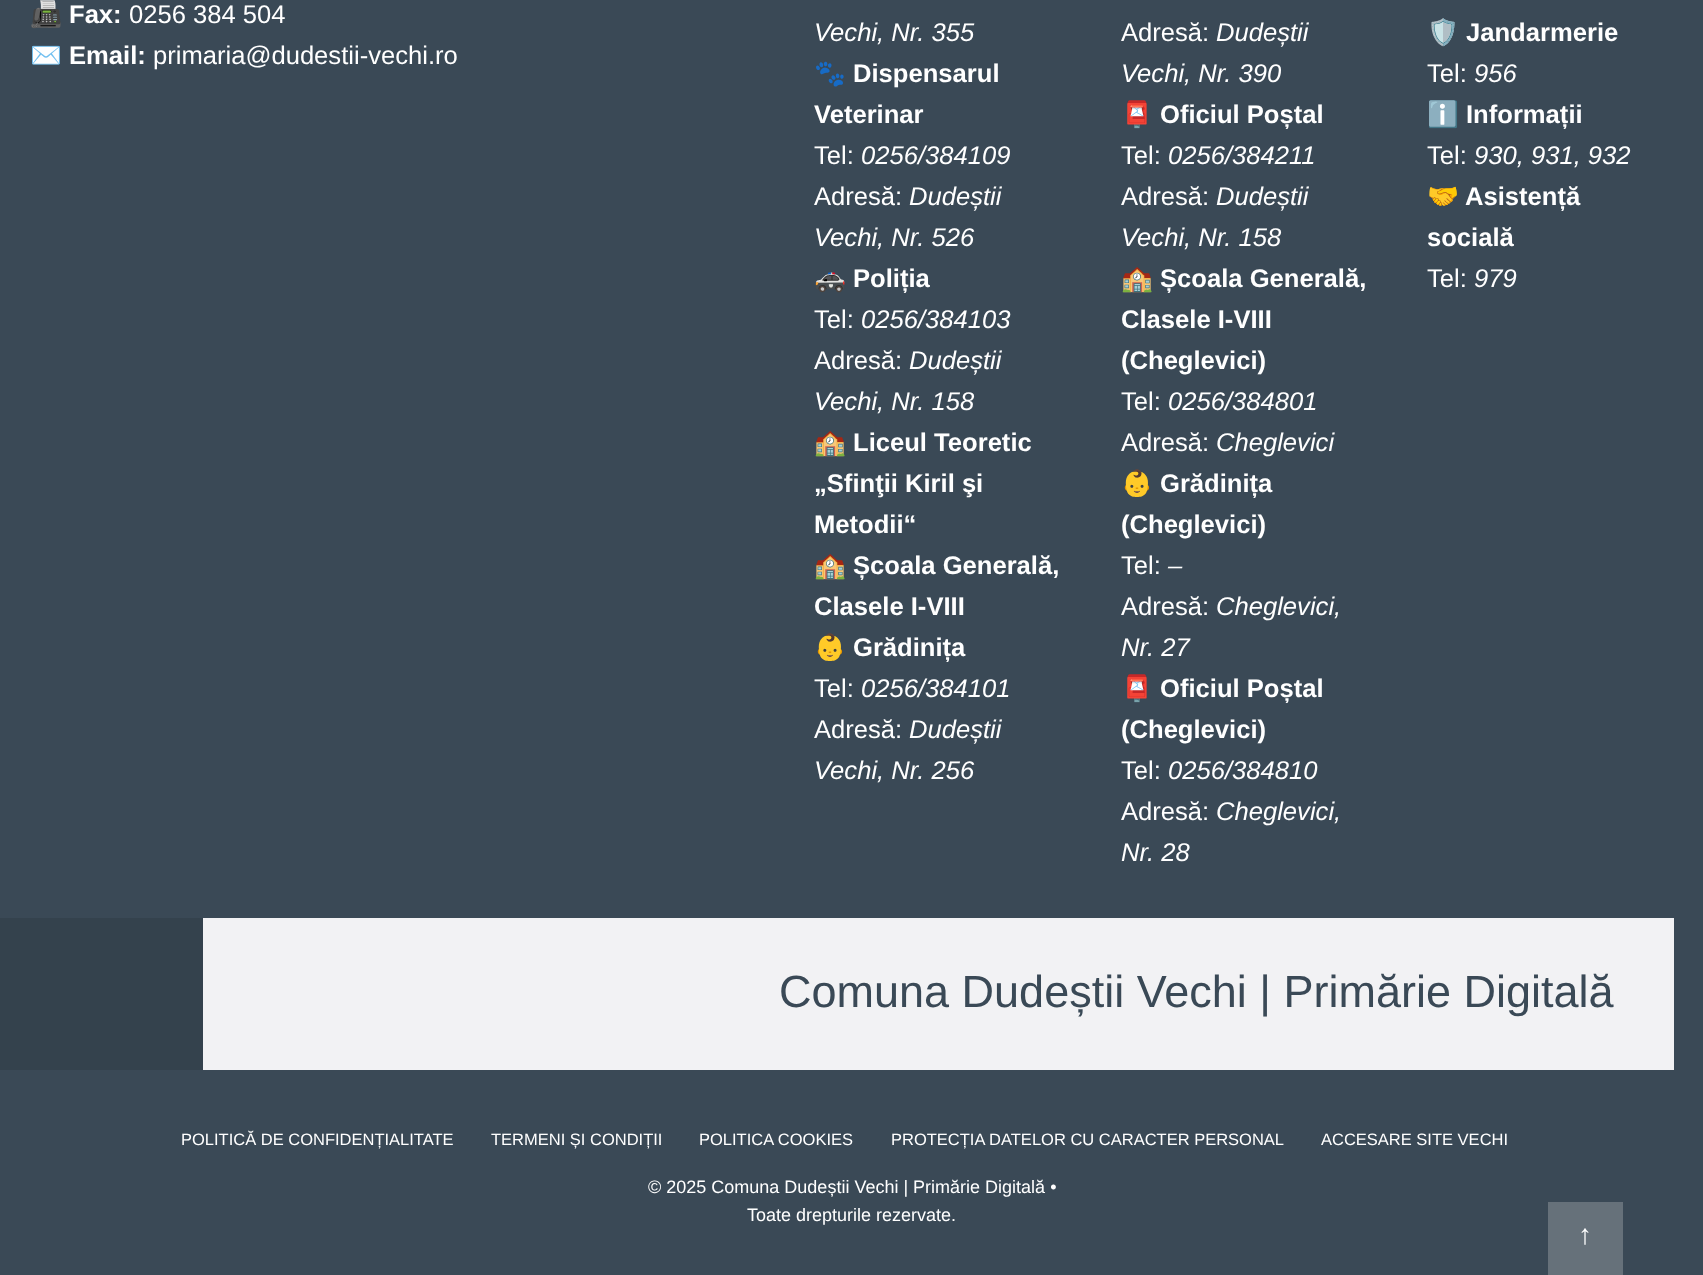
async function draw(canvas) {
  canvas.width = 1703;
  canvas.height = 1275;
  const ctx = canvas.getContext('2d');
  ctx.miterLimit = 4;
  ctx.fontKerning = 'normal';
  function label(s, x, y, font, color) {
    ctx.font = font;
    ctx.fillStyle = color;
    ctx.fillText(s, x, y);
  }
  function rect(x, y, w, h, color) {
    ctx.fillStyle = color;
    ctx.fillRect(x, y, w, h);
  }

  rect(0, 0, 1703, 1275, '#3a4956');
  label('📠', 30, 23, 'bold 25.6px Noto Color Emoji', '#fff');
  label('Fax:', 69, 23, 'bold 25.6px Liberation Sans', '#fff');
  label('0256 384 504', 129, 23, '25.6px Liberation Sans', '#fff');
  label('✉️', 30, 64, 'bold 25.6px Noto Color Emoji', '#fff');
  label('Email:', 69, 64, 'bold 25.6px Liberation Sans', '#fff');
  label('primaria@dudestii-vechi.ro', 153, 64, '25.6px Liberation Sans', '#fff');
  label('Vechi, Nr. 355', 814, 41, 'italic 25.6px Liberation Sans', '#fff');
  label('🐾', 814, 82, 'bold 25.6px Noto Color Emoji', '#fff');
  label('Dispensarul', 853, 82, 'bold 25.6px Liberation Sans', '#fff');
  label('Veterinar', 814, 123, 'bold 25.6px Liberation Sans', '#fff');
  label('Tel:', 814, 164, '25.6px Liberation Sans', '#fff');
  label('0256/384109', 861, 164, 'italic 25.6px Liberation Sans', '#fff');
  label('Adresă:', 814, 205, '25.6px Liberation Sans', '#fff');
  label('Dudeștii', 909, 205, 'italic 25.6px Liberation Sans', '#fff');
  label('Vechi, Nr. 526', 814, 246, 'italic 25.6px Liberation Sans', '#fff');
  label('🚓', 814, 287, 'bold 25.6px Noto Color Emoji', '#fff');
  label('Poliția', 853, 287, 'bold 25.6px Liberation Sans', '#fff');
  label('Tel:', 814, 328, '25.6px Liberation Sans', '#fff');
  label('0256/384103', 861, 328, 'italic 25.6px Liberation Sans', '#fff');
  label('Adresă:', 814, 369, '25.6px Liberation Sans', '#fff');
  label('Dudeștii', 909, 369, 'italic 25.6px Liberation Sans', '#fff');
  label('Vechi, Nr. 158', 814, 410, 'italic 25.6px Liberation Sans', '#fff');
  label('🏫', 814, 451, 'bold 25.6px Noto Color Emoji', '#fff');
  label('Liceul Teoretic', 853, 451, 'bold 25.6px Liberation Sans', '#fff');
  label('„Sfinţii Kiril şi', 814, 492, 'bold 25.6px Liberation Sans', '#fff');
  label('Metodii“', 814, 533, 'bold 25.6px Liberation Sans', '#fff');
  label('🏫', 814, 574, 'bold 25.6px Noto Color Emoji', '#fff');
  label('Școala Generală,', 853, 574, 'bold 25.6px Liberation Sans', '#fff');
  label('Clasele I-VIII', 814, 615, 'bold 25.6px Liberation Sans', '#fff');
  label('👶', 814, 656, 'bold 25.6px Noto Color Emoji', '#fff');
  label('Grădinița', 853, 656, 'bold 25.6px Liberation Sans', '#fff');
  label('Tel:', 814, 697, '25.6px Liberation Sans', '#fff');
  label('0256/384101', 861, 697, 'italic 25.6px Liberation Sans', '#fff');
  label('Adresă:', 814, 738, '25.6px Liberation Sans', '#fff');
  label('Dudeștii', 909, 738, 'italic 25.6px Liberation Sans', '#fff');
  label('Vechi, Nr. 256', 814, 779, 'italic 25.6px Liberation Sans', '#fff');
  label('Adresă:', 1121, 41, '25.6px Liberation Sans', '#fff');
  label('Dudeștii', 1216, 41, 'italic 25.6px Liberation Sans', '#fff');
  label('Vechi, Nr. 390', 1121, 82, 'italic 25.6px Liberation Sans', '#fff');
  label('📮', 1121, 123, 'bold 25.6px Noto Color Emoji', '#fff');
  label('Oficiul Poștal', 1160, 123, 'bold 25.6px Liberation Sans', '#fff');
  label('Tel:', 1121, 164, '25.6px Liberation Sans', '#fff');
  label('0256/384211', 1168, 164, 'italic 25.6px Liberation Sans', '#fff');
  label('Adresă:', 1121, 205, '25.6px Liberation Sans', '#fff');
  label('Dudeștii', 1216, 205, 'italic 25.6px Liberation Sans', '#fff');
  label('Vechi, Nr. 158', 1121, 246, 'italic 25.6px Liberation Sans', '#fff');
  label('🏫', 1121, 287, 'bold 25.6px Noto Color Emoji', '#fff');
  label('Școala Generală,', 1160, 287, 'bold 25.6px Liberation Sans', '#fff');
  label('Clasele I-VIII', 1121, 328, 'bold 25.6px Liberation Sans', '#fff');
  label('(Cheglevici)', 1121, 369, 'bold 25.6px Liberation Sans', '#fff');
  label('Tel:', 1121, 410, '25.6px Liberation Sans', '#fff');
  label('0256/384801', 1168, 410, 'italic 25.6px Liberation Sans', '#fff');
  label('Adresă:', 1121, 451, '25.6px Liberation Sans', '#fff');
  label('Cheglevici', 1216, 451, 'italic 25.6px Liberation Sans', '#fff');
  label('👶', 1121, 492, 'bold 25.6px Noto Color Emoji', '#fff');
  label('Grădinița', 1160, 492, 'bold 25.6px Liberation Sans', '#fff');
  label('(Cheglevici)', 1121, 533, 'bold 25.6px Liberation Sans', '#fff');
  label('Tel:', 1121, 574, '25.6px Liberation Sans', '#fff');
  label('–', 1168, 574, 'italic 25.6px Liberation Sans', '#fff');
  label('Adresă:', 1121, 615, '25.6px Liberation Sans', '#fff');
  label('Cheglevici,', 1216, 615, 'italic 25.6px Liberation Sans', '#fff');
  label('Nr. 27', 1121, 656, 'italic 25.6px Liberation Sans', '#fff');
  label('📮', 1121, 697, 'bold 25.6px Noto Color Emoji', '#fff');
  label('Oficiul Poștal', 1160, 697, 'bold 25.6px Liberation Sans', '#fff');
  label('(Cheglevici)', 1121, 738, 'bold 25.6px Liberation Sans', '#fff');
  label('Tel:', 1121, 779, '25.6px Liberation Sans', '#fff');
  label('0256/384810', 1168, 779, 'italic 25.6px Liberation Sans', '#fff');
  label('Adresă:', 1121, 820, '25.6px Liberation Sans', '#fff');
  label('Cheglevici,', 1216, 820, 'italic 25.6px Liberation Sans', '#fff');
  label('Nr. 28', 1121, 861, 'italic 25.6px Liberation Sans', '#fff');
  label('🛡️', 1427, 41, 'bold 25.6px Noto Color Emoji', '#fff');
  label('Jandarmerie', 1466, 41, 'bold 25.6px Liberation Sans', '#fff');
  label('Tel:', 1427, 82, '25.6px Liberation Sans', '#fff');
  label('956', 1474, 82, 'italic 25.6px Liberation Sans', '#fff');
  label('ℹ️', 1427, 123, 'bold 25.6px Noto Color Emoji', '#fff');
  label('Informații', 1466, 123, 'bold 25.6px Liberation Sans', '#fff');
  label('Tel:', 1427, 164, '25.6px Liberation Sans', '#fff');
  label('930, 931, 932', 1474, 164, 'italic 25.6px Liberation Sans', '#fff');
  label('🤝', 1427, 205, 'bold 25.6px Noto Color Emoji', '#fff');
  label('Asistență', 1465, 205, 'bold 25.6px Liberation Sans', '#fff');
  label('socială', 1427, 246, 'bold 25.6px Liberation Sans', '#fff');
  label('Tel:', 1427, 287, '25.6px Liberation Sans', '#fff');
  label('979', 1474, 287, 'italic 25.6px Liberation Sans', '#fff');
  rect(203, 918, 1471, 152, '#f2f2f4');
  rect(0, 918, 203, 152, '#34424d');
  label('Comuna Dudeștii Vechi | Primărie Digitală', 779, 1007, '45px Liberation Sans', '#3a4956');
  label('POLITICĂ DE CONFIDENȚIALITATE', 181, 1145, '16.5px Liberation Sans', '#fff');
  label('TERMENI ȘI CONDIȚII', 491, 1145, '16.5px Liberation Sans', '#fff');
  label('POLITICA COOKIES', 699, 1145, '16.5px Liberation Sans', '#fff');
  label('PROTECȚIA DATELOR CU CARACTER PERSONAL', 891, 1145, '16.5px Liberation Sans', '#fff');
  label('ACCESARE SITE VECHI', 1321, 1145, '16.5px Liberation Sans', '#fff');
  label('© 2025 Comuna Dudeștii Vechi | Primărie Digitală •', 648, 1193, '18px Liberation Sans', '#fff');
  label('Toate drepturile rezervate.', 747, 1221, '18px Liberation Sans', '#fff');
  rect(1548, 1202, 75, 73, '#66717a');
  label('↑', 1578, 1244, '28px Liberation Sans', '#fff');
}

draw(document.querySelector('canvas'));
